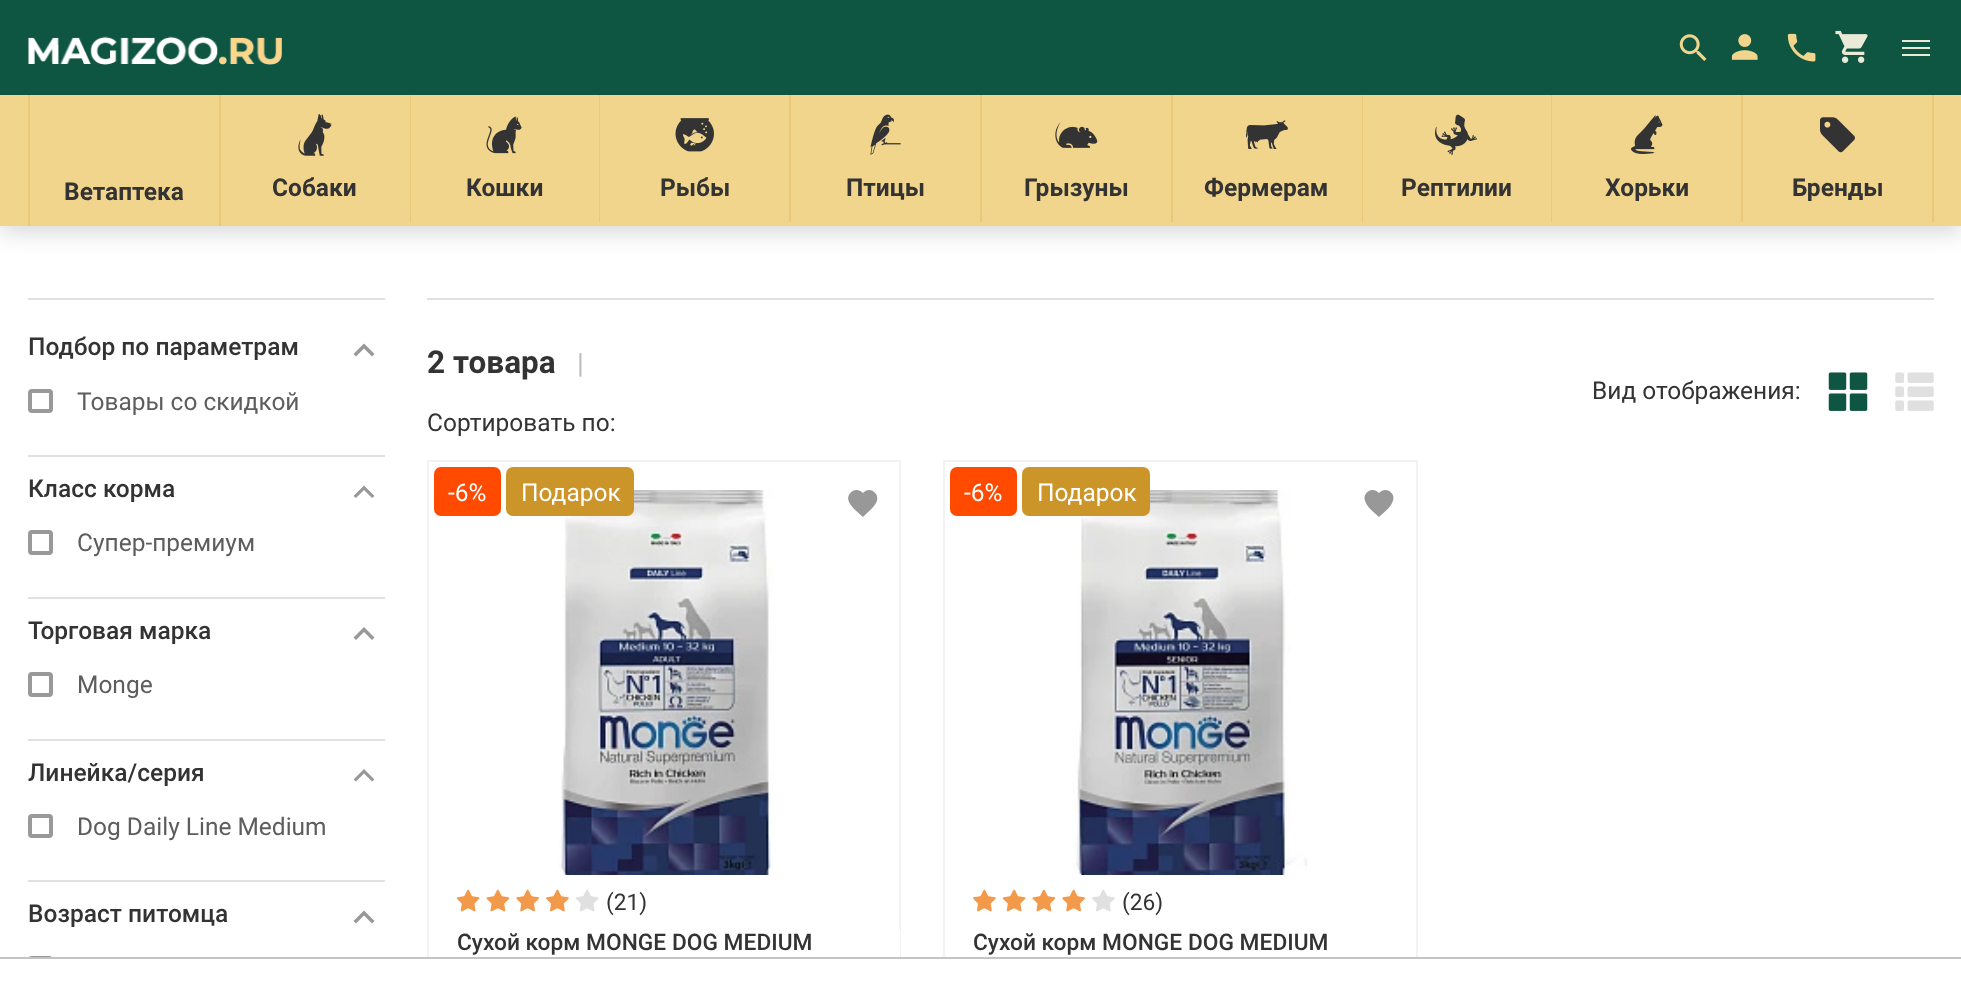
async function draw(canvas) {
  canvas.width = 1961;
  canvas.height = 1000;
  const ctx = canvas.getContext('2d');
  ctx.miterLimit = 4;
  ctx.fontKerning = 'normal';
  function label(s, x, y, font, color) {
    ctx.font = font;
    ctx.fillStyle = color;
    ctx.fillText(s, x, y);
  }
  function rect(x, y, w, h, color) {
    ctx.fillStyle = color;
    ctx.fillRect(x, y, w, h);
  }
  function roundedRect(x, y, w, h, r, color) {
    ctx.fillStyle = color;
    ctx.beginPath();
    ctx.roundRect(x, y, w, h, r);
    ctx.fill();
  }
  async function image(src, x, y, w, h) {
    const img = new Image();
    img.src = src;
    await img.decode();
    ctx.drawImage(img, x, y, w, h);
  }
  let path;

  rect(0, 0, 1961, 1000, '#fff');
  ctx.fillStyle = '#00000026';
  ctx.filter = 'blur(10.5px)';
  ctx.beginPath();
  ctx.rect(0, 102, 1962, 131);
  ctx.fill();
  ctx.filter = 'none';
  rect(0, 0, 1961, 95, '#0e5542');
  await image('assets/img1.png', 28, 36, 254, 29);
  await image('assets/img2.png', 1679, 34, 28, 27);
  await image('assets/img3.png', 1731, 34, 27, 26);
  await image('assets/img4.png', 1787, 33, 29, 29);
  await image('assets/img5.png', 1835, 30, 33, 33);
  rect(1902, 40, 28, 2, '#eaebd7');
  rect(1902, 47, 28, 2, '#eaebd7');
  rect(1902, 54, 28, 2, '#eaebd7');
  rect(0, 95, 1961, 131, '#f2d58c');
  rect(28, 95, 2, 131, '#eac878');
  rect(219, 95, 2, 131, '#eac878');
  label('Ветаптека', 64, 200, 'bold 24.5px Roboto', '#333');
  rect(410, 95, 1, 127, '#eac878');
  await image('assets/img6.png', 298, 113, 34, 43);
  label('Собаки', 272, 196, 'bold 24.5px Roboto', '#333');
  rect(599, 95, 1, 127, '#eac878');
  await image('assets/img7.png', 486, 116, 36, 38);
  label('Кошки', 466, 196, 'bold 24.5px Roboto', '#333');
  rect(789, 95, 2, 127, '#eac878');
  await image('assets/img8.png', 675, 118, 39, 34);
  label('Рыбы', 660, 196, 'bold 24.5px Roboto', '#333');
  rect(980, 95, 2, 127, '#eac878');
  await image('assets/img9.png', 870, 114, 31, 41);
  label('Птицы', 846, 196, 'bold 24.5px Roboto', '#333');
  rect(1171, 95, 2, 127, '#eac878');
  await image('assets/img10.png', 1055, 122, 43, 26);
  label('Грызуны', 1024, 196, 'bold 24.5px Roboto', '#333');
  rect(1362, 95, 1, 127, '#eac878');
  await image('assets/img11.png', 1246, 120, 42, 29);
  label('Фермерам', 1204, 196, 'bold 24.5px Roboto', '#333');
  rect(1551, 95, 1, 127, '#eac878');
  await image('assets/img12.png', 1435, 114, 42, 41);
  label('Рептилии', 1401, 196, 'bold 24.5px Roboto', '#333');
  rect(1741, 95, 2, 127, '#eac878');
  await image('assets/img13.png', 1631, 115, 32, 39);
  label('Хорьки', 1605, 196, 'bold 24.5px Roboto', '#333');
  rect(1932, 95, 2, 127, '#eac878');
  await image('assets/img14.png', 1820, 117, 35, 36);
  label('Бренды', 1792, 196, 'bold 24.5px Roboto', '#333');
  rect(28, 298, 357, 2, '#e0e0e0');
  rect(28, 455, 357, 2, '#e0e0e0');
  label('Подбор по параметрам', 28, 355, '500 24.5px Roboto', '#333');
  ctx.fillStyle = '#989898';
  path = new Path2D('M356 356.5L353.5 354L364 343.5L374.5 354L372 356.5L364 348.5Z');
  ctx.fill(path);
  ctx.beginPath();
  ctx.roundRect(30, 391, 21, 20, 2);
  ctx.strokeStyle = '#999';
  ctx.lineWidth = 4;
  ctx.stroke();
  label('Товары со скидкой', 77, 410, '24.5px Roboto', '#5d5d5d');
  rect(28, 597, 357, 2, '#e0e0e0');
  label('Класс корма', 28, 497, '500 24.5px Roboto', '#333');
  ctx.fillStyle = '#989898';
  path = new Path2D('M356 498L353.5 496L364 485.5L374.5 496L372 498L364 490Z');
  ctx.fill(path);
  ctx.beginPath();
  ctx.roundRect(30, 532, 21, 21, 2);
  ctx.stroke();
  label('Супер-премиум', 77, 551, '24.5px Roboto', '#5d5d5d');
  rect(28, 739, 357, 2, '#e0e0e0');
  label('Торговая марка', 28, 639, '500 24.5px Roboto', '#333');
  ctx.fillStyle = '#989898';
  path = new Path2D('M356 640L353.5 637.5L364 627L374.5 637.5L372 640L364 632Z');
  ctx.fill(path);
  ctx.beginPath();
  ctx.roundRect(30, 674, 21, 21, 2);
  ctx.stroke();
  label('Monge', 77, 693, '24.5px Roboto', '#5d5d5d');
  rect(28, 880, 357, 2, '#e0e0e0');
  label('Линейка/серия', 28, 781, '500 24.5px Roboto', '#333');
  ctx.fillStyle = '#989898';
  path = new Path2D('M356 781.5L353.5 779.5L364 769L374.5 779.5L372 781.5L364 773.5Z');
  ctx.fill(path);
  ctx.beginPath();
  ctx.roundRect(30, 816, 21, 20, 2);
  ctx.stroke();
  label('Dog Daily Line Medium', 77, 835, '24.5px Roboto', '#5d5d5d');
  label('Возраст питомца', 28, 922, '500 24.5px Roboto', '#333');
  ctx.fillStyle = '#989898';
  path = new Path2D('M356 923.5L353.5 921L364 910.5L374.5 921L372 923.5L364 915.5Z');
  ctx.fill(path);
  ctx.beginPath();
  ctx.roundRect(30, 958, 21, 20, 2);
  ctx.stroke();
  rect(427, 298, 1507, 2, '#e0e0e0');
  label('2 товара', 427, 373, 'bold 31.5px Roboto', '#333');
  label('|', 577, 373, '28px Roboto', '#bdbdbd');
  label('Сортировать по:', 427, 431, '24.5px Roboto', '#333');
  label('Вид отображения:', 1592, 399, '24.5px Roboto', '#333');
  await image('assets/img15.png', 1828, 372, 40, 39);
  await image('assets/img16.png', 1895, 372, 39, 39);
  ctx.strokeStyle = '#f2f2f2';
  ctx.lineWidth = 2;
  ctx.strokeRect(428, 461, 472, 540);
  roundedRect(434, 467, 67, 49, 7, '#ff4a00');
  label('-6%', 448, 501, '24.5px Roboto', '#fff');
  await image('assets/img17.png', 559, 490, 214, 385);
  roundedRect(506, 467, 128, 49, 7, '#cc952a');
  label('Подарок', 521, 501, '24.5px Roboto', '#fff');
  ctx.fillStyle = '#989898';
  path = new Path2D('M863 517C858 512.5 852 508 849 502C845 493 856.5 485.5 863 493C869 485.5 880.5 493 876.5 502C873.5 508 867.5 512.5 863 517Z');
  ctx.fill(path);
  await image('assets/img18.png', 456, 889, 24, 23);
  await image('assets/img19.png', 486, 889, 24, 23);
  await image('assets/img20.png', 516, 889, 23, 23);
  await image('assets/img21.png', 546, 889, 23, 23);
  await image('assets/img22.png', 575, 889, 24, 23);
  label('(21)', 606, 910, '22.75px Roboto', '#333');
  rect(899, 929, 1, 28, '#fff');
  label('Сухой корм MONGE DOG MEDIUM', 457, 950, '500 22.75px Roboto', '#333');
  ctx.strokeRect(944, 461, 473, 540);
  roundedRect(950, 467, 67, 49, 7, '#ff4a00');
  label('-6%', 964, 501, '24.5px Roboto', '#fff');
  await image('assets/img23.png', 1073, 490, 235, 385);
  roundedRect(1022, 467, 128, 49, 7, '#cc952a');
  label('Подарок', 1037, 501, '24.5px Roboto', '#fff');
  ctx.fillStyle = '#989898';
  path = new Path2D('M1379 517C1374 512.5 1368 508 1365.5 502C1361 493 1372.5 485.5 1379 493C1385.5 485.5 1397 493 1392.5 502C1390 508 1384 512.5 1379 517Z');
  ctx.fill(path);
  await image('assets/img21.png', 973, 889, 23, 23);
  await image('assets/img18.png', 1002, 889, 24, 23);
  await image('assets/img19.png', 1032, 889, 24, 23);
  await image('assets/img20.png', 1062, 889, 23, 23);
  await image('assets/img24.png', 1092, 889, 23, 23);
  label('(26)', 1122, 910, '22.75px Roboto', '#333');
  label('Сухой корм MONGE DOG MEDIUM', 973, 950, '500 22.75px Roboto', '#333');
  rect(28, 959, 1390, 41, '#fff');
  rect(0, 957, 1961, 2, '#c4c4c4');
}

draw(document.querySelector('canvas'));
